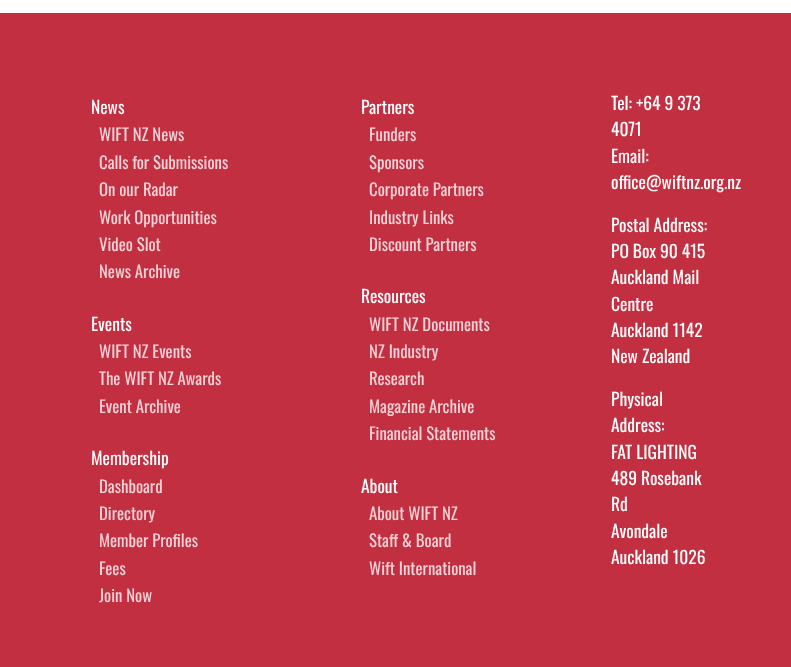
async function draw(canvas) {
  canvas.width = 791;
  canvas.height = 667;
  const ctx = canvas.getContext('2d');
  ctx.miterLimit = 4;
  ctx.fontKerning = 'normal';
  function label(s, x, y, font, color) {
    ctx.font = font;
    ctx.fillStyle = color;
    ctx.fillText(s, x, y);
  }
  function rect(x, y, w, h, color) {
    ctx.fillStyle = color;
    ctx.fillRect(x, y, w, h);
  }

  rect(0, 0, 791, 667, '#fff');
  rect(0, 13, 791, 654, '#c12f41');
  label('News', 91, 114, '17.5px Oswald', '#fff');
  label('WIFT NZ News', 99, 141, '16.75px Oswald', '#f3d3d7');
  label('Calls for Submissions', 99, 169, '16.75px Oswald', '#f3d3d7');
  label('On our Radar', 99, 196, '16.75px Oswald', '#f3d3d7');
  label('Work Opportunities', 99, 224, '16.75px Oswald', '#f3d3d7');
  label('Video Slot', 99, 251, '16.75px Oswald', '#f3d3d7');
  label('News Archive', 99, 278, '16.75px Oswald', '#f3d3d7');
  label('Events', 91, 331, '17.5px Oswald', '#fff');
  label('WIFT NZ Events', 99, 358, '16.75px Oswald', '#f3d3d7');
  label('The WIFT NZ Awards', 99, 385, '16.75px Oswald', '#f3d3d7');
  label('Event Archive', 99, 413, '16.75px Oswald', '#f3d3d7');
  label('Membership', 91, 465, '17.5px Oswald', '#fff');
  label('Dashboard', 99, 493, '16.75px Oswald', '#f3d3d7');
  label('Directory', 99, 520, '16.75px Oswald', '#f3d3d7');
  label('Member Profiles', 99, 547, '16.75px Oswald', '#f3d3d7');
  label('Fees', 99, 575, '16.75px Oswald', '#f3d3d7');
  label('Join Now', 99, 602, '16.75px Oswald', '#f3d3d7');
  label('Partners', 361, 114, '17.5px Oswald', '#fff');
  label('Funders', 369, 141, '16.75px Oswald', '#f3d3d7');
  label('Sponsors', 369, 169, '16.75px Oswald', '#f3d3d7');
  label('Corporate Partners', 369, 196, '16.75px Oswald', '#f3d3d7');
  label('Industry Links', 369, 224, '16.75px Oswald', '#f3d3d7');
  label('Discount Partners', 369, 251, '16.75px Oswald', '#f3d3d7');
  label('Resources', 361, 303, '17.5px Oswald', '#fff');
  label('WIFT NZ Documents', 369, 331, '16.75px Oswald', '#f3d3d7');
  label('NZ Industry', 369, 358, '16.75px Oswald', '#f3d3d7');
  label('Research', 369, 385, '16.75px Oswald', '#f3d3d7');
  label('Magazine Archive', 369, 413, '16.75px Oswald', '#f3d3d7');
  label('Financial Statements', 369, 440, '16.75px Oswald', '#f3d3d7');
  label('About', 361, 493, '17.5px Oswald', '#fff');
  label('About WIFT NZ', 369, 520, '16.75px Oswald', '#f3d3d7');
  label('Staff & Board', 369, 547, '16.75px Oswald', '#f3d3d7');
  label('Wift International', 369, 575, '16.75px Oswald', '#f3d3d7');
  label('Tel: +64 9 373', 611, 110, '17.5px Oswald', '#fff');
  label('4071', 611, 136, '17.5px Oswald', '#fff');
  label('Email:', 611, 163, '17.5px Oswald', '#fff');
  label('office@wiftnz.org.nz', 611, 189, '17.5px Oswald', '#fff');
  label('Postal Address:', 611, 232, '17.5px Oswald', '#fff');
  label('PO Box 90 415', 611, 258, '17.5px Oswald', '#fff');
  label('Auckland Mail', 611, 284, '17.5px Oswald', '#fff');
  label('Centre', 611, 311, '17.5px Oswald', '#fff');
  label('Auckland 1142', 611, 337, '17.5px Oswald', '#fff');
  label('New Zealand', 611, 363, '17.5px Oswald', '#fff');
  label('Physical', 611, 406, '17.5px Oswald', '#fff');
  label('Address:', 611, 432, '17.5px Oswald', '#fff');
  label('FAT LIGHTING', 611, 459, '17.5px Oswald', '#fff');
  label('489 Rosebank', 611, 485, '17.5px Oswald', '#fff');
  label('Rd', 611, 511, '17.5px Oswald', '#fff');
  label('Avondale', 611, 538, '17.5px Oswald', '#fff');
  label('Auckland 1026', 611, 564, '17.5px Oswald', '#fff');
}

draw(document.querySelector('canvas'));
